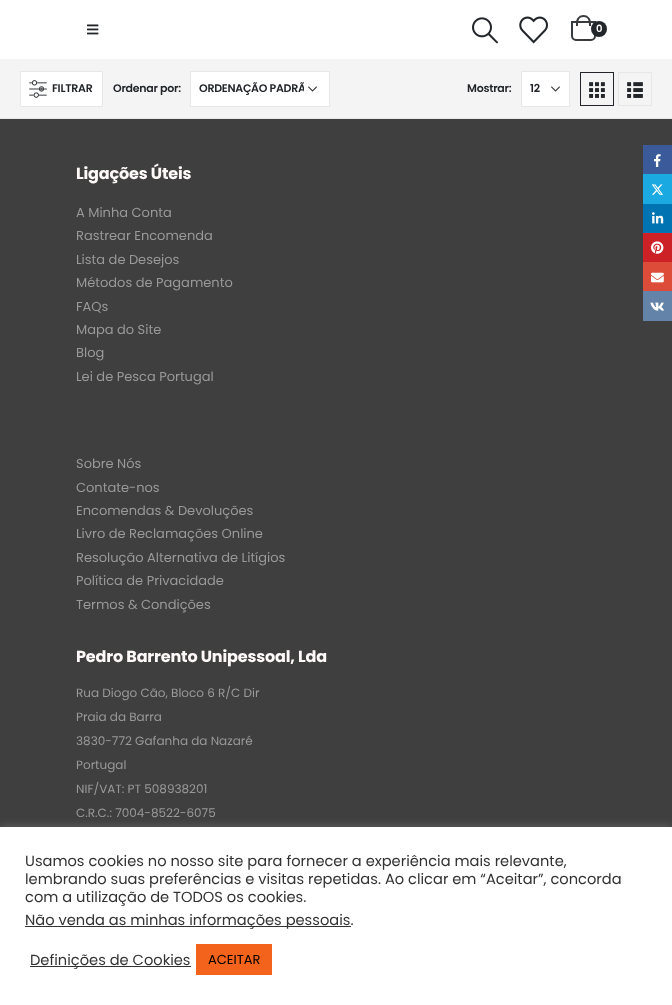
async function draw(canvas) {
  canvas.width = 672;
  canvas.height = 1005;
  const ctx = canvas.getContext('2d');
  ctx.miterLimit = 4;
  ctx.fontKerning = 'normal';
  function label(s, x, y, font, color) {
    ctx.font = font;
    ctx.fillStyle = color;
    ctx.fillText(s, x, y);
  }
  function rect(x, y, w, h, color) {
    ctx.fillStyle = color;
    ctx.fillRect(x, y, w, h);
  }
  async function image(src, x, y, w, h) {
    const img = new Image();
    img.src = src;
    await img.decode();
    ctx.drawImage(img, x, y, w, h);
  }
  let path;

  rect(0, 0, 672, 1005, '#403f3f');
  rect(0, 0, 672, 59, '#fff');
  await image('assets/img1.png', 87, 24, 12, 11);
  await image('assets/img2.png', 472, 17, 26, 27);
  await image('assets/img3.png', 519, 16, 29, 28);
  ctx.beginPath();
  ctx.roundRect(572, 22, 23, 18, [0, 0, 4, 4]);
  ctx.strokeStyle = '#383b3e';
  ctx.lineWidth = 2;
  ctx.stroke();
  ctx.fillStyle = '#383b3e';
  path = new Path2D('M583.5 15C587.5 15 591 18.5 591 22.5V26H576V22.5C576 18.5 579.5 15 583.5 15ZM583.5 17C589 17 589 22 589 26H578C578 22 578 17 583.5 17Z');
  ctx.fill(path, 'evenodd');
  ctx.fillStyle = '#222529';
  ctx.beginPath();
  ctx.arc(599, 29, 8, 0, 2 * Math.PI);
  ctx.fill();
  label('0', 596, 32, '600 10px Poppins', '#fff');
  rect(0, 59, 672, 59, '#f4f4f4');
  rect(0, 118, 672, 1, '#e7e7e7');
  ctx.fillStyle = '#fff';
  ctx.beginPath();
  ctx.rect(20.5, 71.5, 82, 35);
  ctx.fill();
  ctx.strokeStyle = '#e7e7e7';
  ctx.lineWidth = 1;
  ctx.stroke();
  await image('assets/img4.png', 29, 80, 18, 18);
  ctx.letterSpacing = '-0.25px';
  label('FILTRAR', 52, 92, '600 11px Poppins', '#222529');
  label('Ordenar por:', 113, 92, '600 11px Poppins', '#222529');
  rect(191, 72, 138, 34, '#fff');
  await image('assets/img5.png', 308, 86, 9, 6);
  ctx.strokeRect(190.5, 71.5, 139, 35);
  ctx.save();
  ctx.beginPath();
  ctx.rect(199, 79, 105, 19);
  ctx.clip();
  label('ORDENAÇÃO PADRÃ', 199, 92, '600 11px Poppins', '#222529');
  ctx.restore();
  label('Mostrar:', 467, 92, '600 11px Poppins', '#222529');
  rect(522, 72, 47, 34, '#fff');
  await image('assets/img5.png', 551, 86, 9, 6);
  ctx.strokeRect(521.5, 71.5, 48, 35);
  label('12', 530, 92, '600 11px Poppins', '#222529');
  ctx.strokeStyle = '#222529';
  ctx.strokeRect(580.5, 72.5, 33, 33);
  await image('assets/img6.png', 589, 82, 16, 16);
  ctx.strokeStyle = '#e7e7e7';
  ctx.strokeRect(618.5, 72.5, 33, 33);
  await image('assets/img7.png', 627, 82, 16, 16);
  ctx.letterSpacing = '-0.15px';
  label('Ligações Úteis', 76, 179, 'bold 16px Poppins', '#fff9f9');
  ctx.letterSpacing = '0px';
  label('A Minha Conta', 76, 217, '13px Poppins', '#999');
  label('Rastrear Encomenda', 76, 240, '13px Poppins', '#999');
  label('Lista de Desejos', 76, 264, '13px Poppins', '#999');
  label('Métodos de Pagamento', 76, 287, '13px Poppins', '#999');
  label('FAQs', 76, 311, '13px Poppins', '#999');
  label('Mapa do Site', 76, 334, '13px Poppins', '#999');
  label('Blog', 76, 357, '13px Poppins', '#999');
  label('Lei de Pesca Portugal', 76, 381, '13px Poppins', '#999');
  label('Sobre Nós', 76, 468, '13px Poppins', '#999');
  label('Contate-nos', 76, 492, '13px Poppins', '#999');
  label('Encomendas & Devoluções', 76, 515, '13px Poppins', '#999');
  label('Livro de Reclamações Online', 76, 538, '13px Poppins', '#999');
  label('Resolução Alternativa de Litígios', 76, 562, '13px Poppins', '#999');
  label('Política de Privacidade', 76, 585, '13px Poppins', '#999');
  label('Termos & Condições', 76, 609, '13px Poppins', '#999');
  ctx.letterSpacing = '-0.15px';
  label('Pedro Barrento Unipessoal, Lda', 76, 662, 'bold 16px Poppins', '#fff9f9');
  ctx.letterSpacing = '0px';
  label('Rua Diogo Cão, Bloco 6 R/C Dir', 76, 697, '12px Poppins', '#999');
  label('Praia da Barra', 76, 721, '12px Poppins', '#999');
  label('3830-772 Gafanha da Nazaré', 76, 745, '12px Poppins', '#999');
  label('Portugal', 76, 769, '12px Poppins', '#999');
  label('NIF/VAT: PT 508938201', 76, 793, '12px Poppins', '#999');
  label('C.R.C.: 7004-8522-6075', 76, 817, '12px Poppins', '#999');
  rect(643, 145, 29, 29, '#3b5a9a');
  await image('assets/img8.png', 654, 154, 7, 13);
  rect(643, 174, 29, 30, '#1aa9e1');
  await image('assets/img9.png', 651, 184, 12, 11);
  rect(643, 204, 29, 29, '#0073b2');
  await image('assets/img10.png', 652, 212, 12, 12);
  rect(643, 233, 29, 29, '#cc2127');
  await image('assets/img11.png', 651, 241, 13, 13);
  rect(643, 262, 29, 29, '#dd4b39');
  await image('assets/img12.png', 651, 272, 13, 11);
  rect(643, 291, 29, 30, '#6383a8');
  await image('assets/img13.png', 650, 302, 14, 9);
  ctx.fillStyle = '#acabab4d';
  ctx.filter = 'blur(5px)';
  ctx.beginPath();
  ctx.rect(0, 826, 672, 178);
  ctx.fill();
  ctx.filter = 'none';
  rect(0, 827, 672, 178, '#fff');
  label('Usamos cookies no nosso site para fornecer a experiência mais relevante,', 25, 866, '14.65px Poppins', '#333');
  label('lembrando suas preferências e visitas repetidas. Ao clicar em “Aceitar”, concorda', 25, 884, '14.65px Poppins', '#333');
  label('com a utilização de TODOS os cookies.', 25, 902, '14.65px Poppins', '#333');
  rect(25, 926, 326, 1, '#333');
  label('Não venda as minhas informações pessoais.', 25, 925, '14.65px Poppins', '#333');
  rect(30, 966, 161, 1, '#333');
  label('Definições de Cookies', 30, 965, '14.65px Poppins', '#333');
  rect(196, 944, 76, 31, '#f4631b');
  label('ACEITAR', 208, 964, '13px Poppins', '#000');
}

draw(document.querySelector('canvas'));
